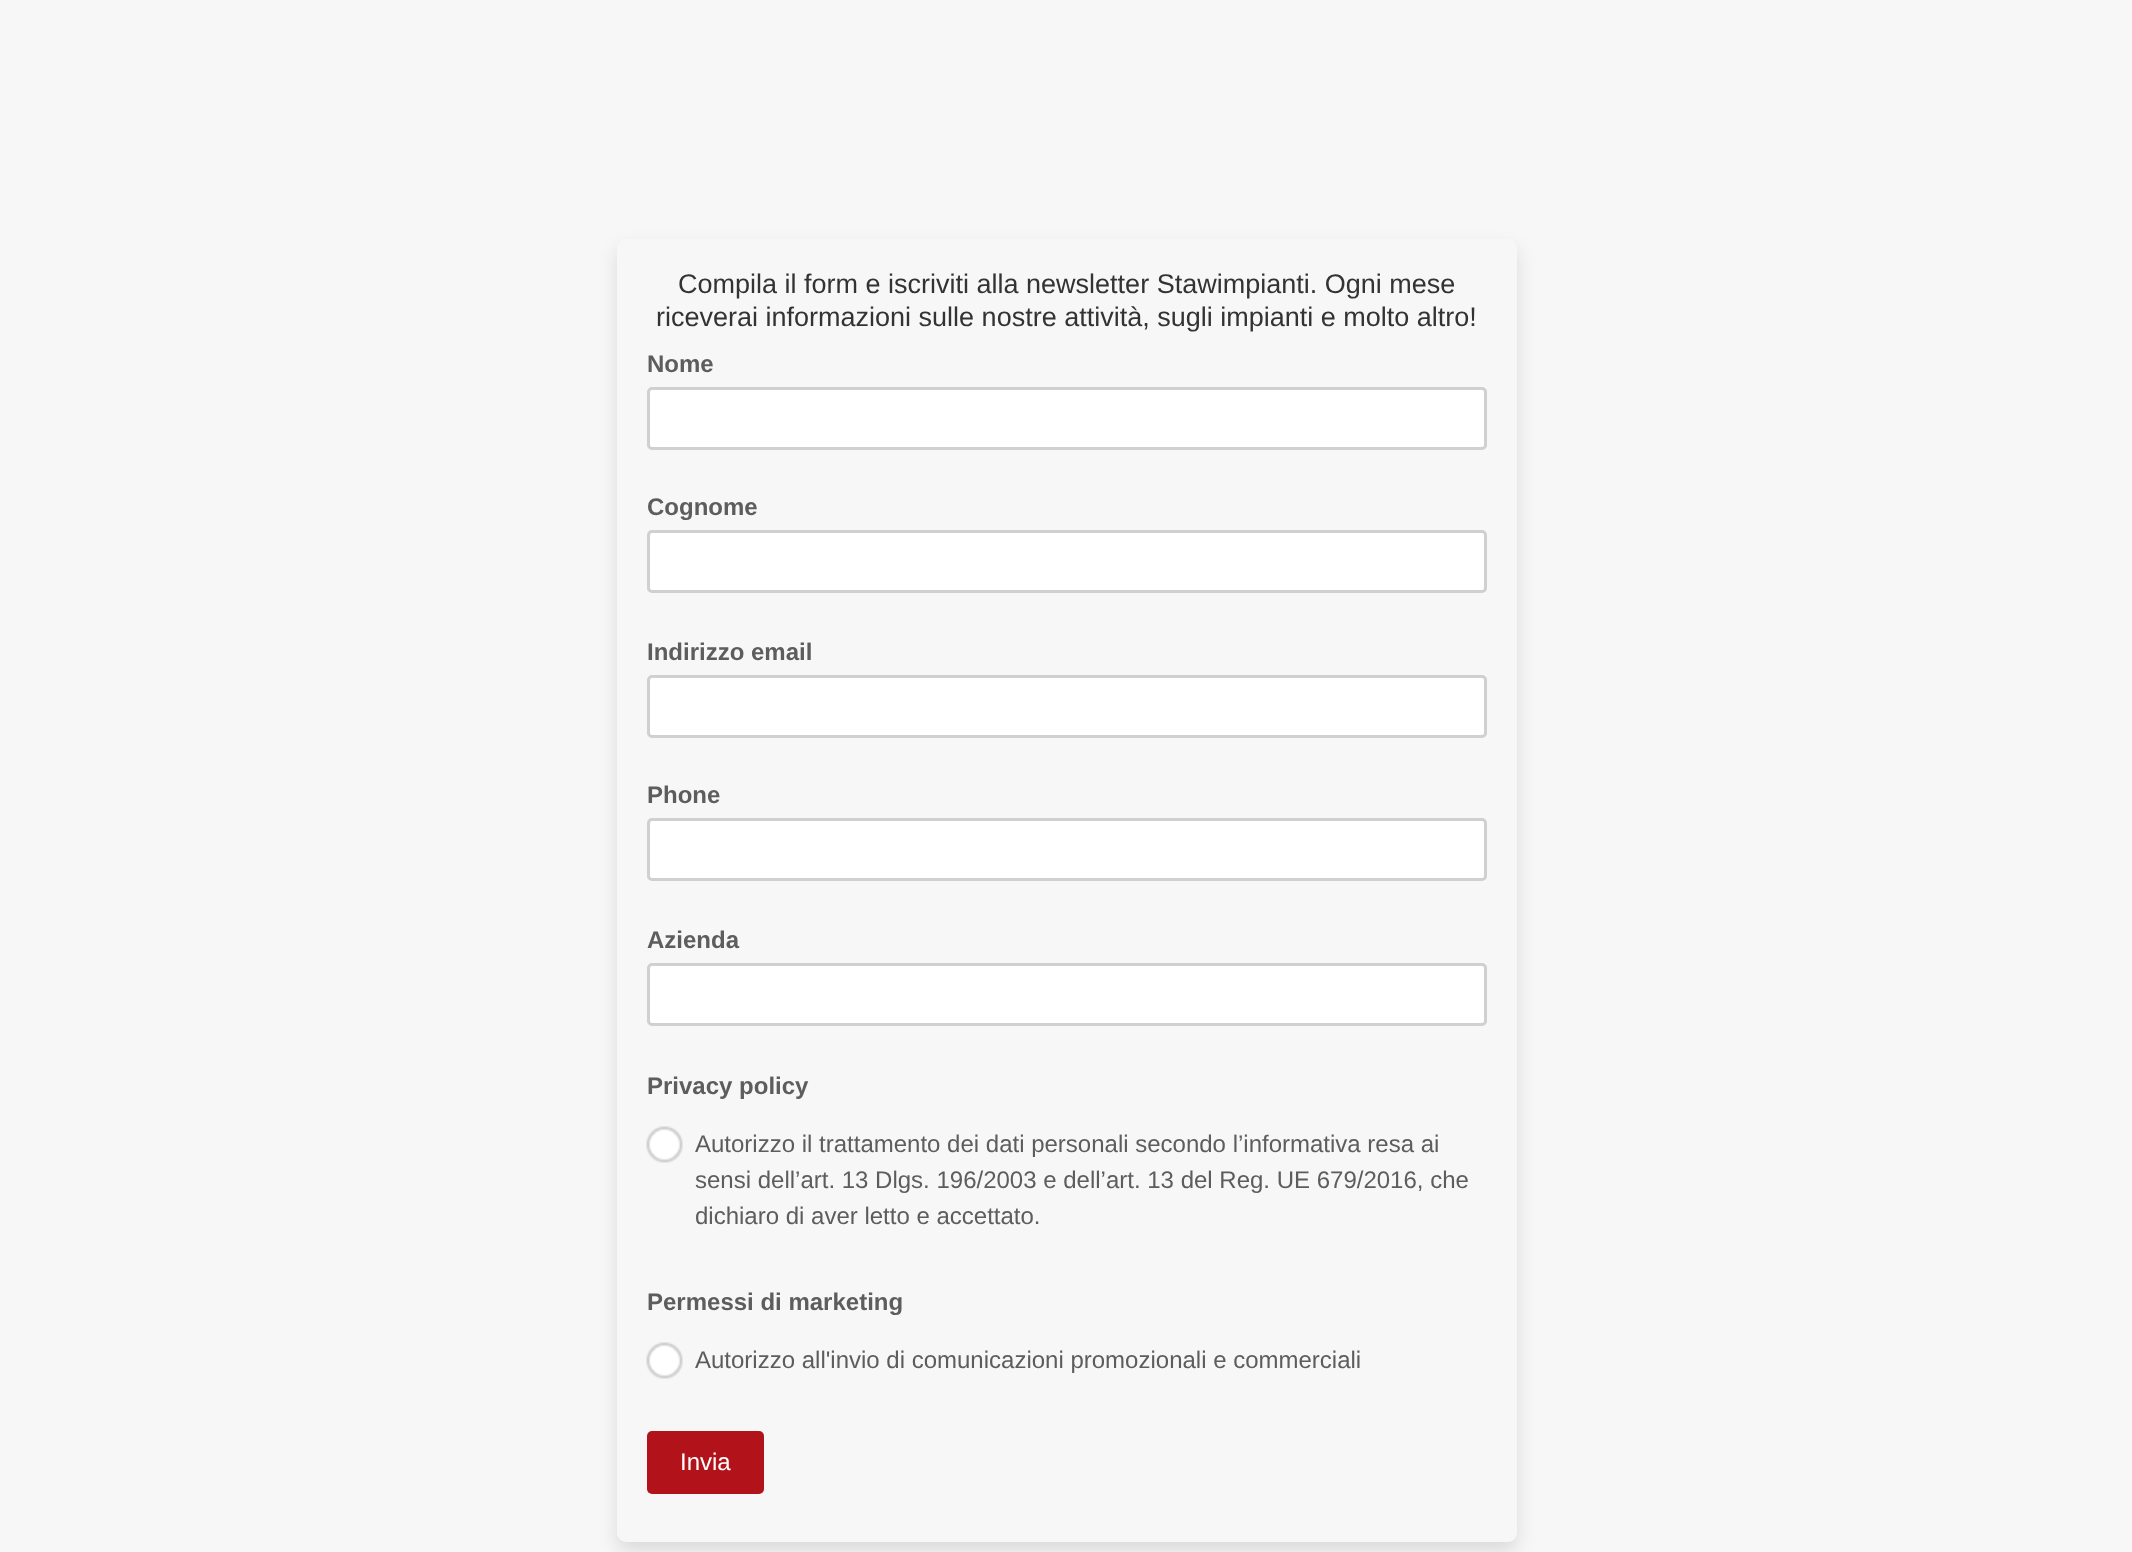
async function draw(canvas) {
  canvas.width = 2132;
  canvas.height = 1552;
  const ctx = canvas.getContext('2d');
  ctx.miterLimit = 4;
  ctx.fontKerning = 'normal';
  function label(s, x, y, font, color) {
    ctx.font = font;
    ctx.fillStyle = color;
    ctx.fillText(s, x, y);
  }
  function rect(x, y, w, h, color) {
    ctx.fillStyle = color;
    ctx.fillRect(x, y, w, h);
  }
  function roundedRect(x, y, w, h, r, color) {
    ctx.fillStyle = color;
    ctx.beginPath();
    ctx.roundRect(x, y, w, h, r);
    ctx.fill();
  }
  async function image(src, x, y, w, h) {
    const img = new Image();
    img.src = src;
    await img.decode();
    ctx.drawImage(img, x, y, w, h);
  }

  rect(0, 0, 2132, 1552, '#f7f7f7');
  ctx.fillStyle = '#0d12161f';
  ctx.filter = 'blur(9px)';
  ctx.beginPath();
  ctx.roundRect(617, 248, 900, 1303, 9);
  ctx.fill();
  ctx.filter = 'none';
  roundedRect(617, 239, 900, 1303, 9, '#f7f7f7');
  label('Compila il form e iscriviti alla newsletter Stawimpianti. Ogni mese', 678, 293, '27px Liberation Sans', '#333');
  label('riceverai informazioni sulle nostre attività, sugli impianti e molto altro!', 656, 326, '27px Liberation Sans', '#333');
  label('Nome', 647, 372, 'bold 24px Liberation Sans', '#5d5d5d');
  ctx.fillStyle = '#fff';
  ctx.beginPath();
  ctx.roundRect(648.5, 388.5, 837, 60, 3.5);
  ctx.fill();
  ctx.strokeStyle = '#d0d0d0';
  ctx.lineWidth = 3;
  ctx.stroke();
  label('Cognome', 647, 515, 'bold 24px Liberation Sans', '#5d5d5d');
  ctx.fillStyle = '#fff';
  ctx.beginPath();
  ctx.roundRect(648.5, 531.5, 837, 60, 3.5);
  ctx.fill();
  ctx.stroke();
  label('Indirizzo email', 647, 660, 'bold 24px Liberation Sans', '#5d5d5d');
  ctx.fillStyle = '#fff';
  ctx.beginPath();
  ctx.roundRect(648.5, 676.5, 837, 60, 3.5);
  ctx.fill();
  ctx.stroke();
  label('Phone', 647, 803, 'bold 24px Liberation Sans', '#5d5d5d');
  ctx.fillStyle = '#fff';
  ctx.beginPath();
  ctx.roundRect(648.5, 819.5, 837, 60, 3.5);
  ctx.fill();
  ctx.stroke();
  label('Azienda', 647, 948, 'bold 24px Liberation Sans', '#5d5d5d');
  ctx.fillStyle = '#fff';
  ctx.beginPath();
  ctx.roundRect(648.5, 964.5, 837, 60, 3.5);
  ctx.fill();
  ctx.stroke();
  label('Privacy policy', 647, 1094, 'bold 24px Liberation Sans', '#5d5d5d');
  await image('assets/img1.png', 646, 1126, 37, 37);
  label('Autorizzo il trattamento dei dati personali secondo l’informativa resa ai', 695, 1152, '24px Liberation Sans', '#5d5d5d');
  label('sensi dell’art. 13 Dlgs. 196/2003 e dell’art. 13 del Reg. UE 679/2016, che', 695, 1188, '24px Liberation Sans', '#5d5d5d');
  label('dichiaro di aver letto e accettato.', 695, 1224, '24px Liberation Sans', '#5d5d5d');
  label('Permessi di marketing', 647, 1310, 'bold 24px Liberation Sans', '#5d5d5d');
  await image('assets/img1.png', 646, 1342, 37, 37);
  label('Autorizzo all\'invio di comunicazioni promozionali e commerciali', 695, 1368, '24px Liberation Sans', '#5d5d5d');
  roundedRect(647, 1431, 117, 63, 5, '#b2131a');
  label('Invia', 680, 1470, '24px Liberation Sans', '#fff');
}

draw(document.querySelector('canvas'));
